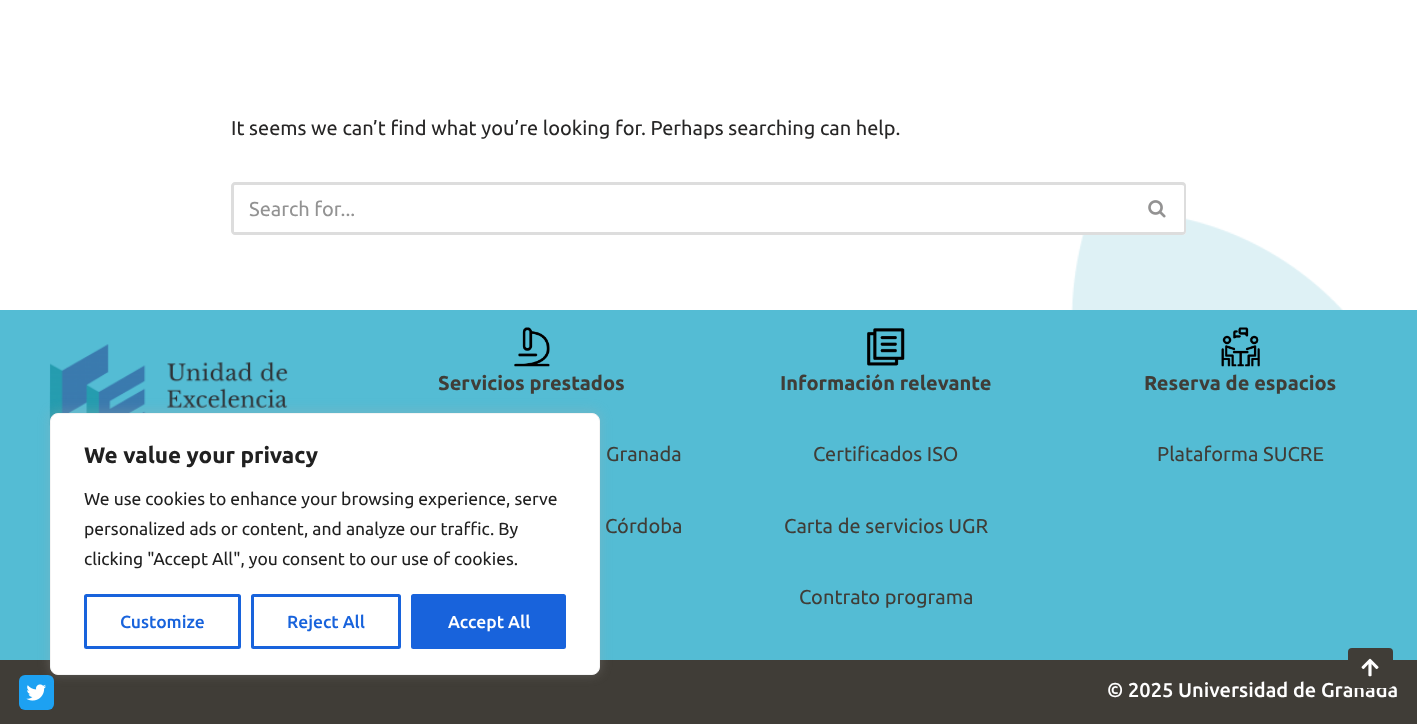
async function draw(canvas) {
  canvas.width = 1417;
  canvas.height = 724;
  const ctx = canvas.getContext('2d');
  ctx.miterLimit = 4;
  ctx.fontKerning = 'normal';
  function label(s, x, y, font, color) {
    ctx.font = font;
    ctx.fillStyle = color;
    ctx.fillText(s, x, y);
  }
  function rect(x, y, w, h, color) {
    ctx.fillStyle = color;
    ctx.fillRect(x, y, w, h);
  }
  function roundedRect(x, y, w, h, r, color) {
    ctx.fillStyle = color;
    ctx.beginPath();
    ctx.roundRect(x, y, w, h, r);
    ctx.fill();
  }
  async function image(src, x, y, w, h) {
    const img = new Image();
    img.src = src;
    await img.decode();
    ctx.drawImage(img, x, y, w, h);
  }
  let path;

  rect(0, 0, 1417, 724, '#fff');
  await image('assets/img1.png', 1071, 218, 272, 92);
  label('It seems we can’t find what you’re looking for. Perhaps searching can help.', 231, 135, '20px Ubuntu', '#272626');
  ctx.fillStyle = '#fff';
  ctx.beginPath();
  ctx.roundRect(231, 183, 899, 52, [4, 0, 0, 4]);
  ctx.fill();
  ctx.fillStyle = '#ddd';
  path = new Path2D('M235 182H1130V235H235C233 235 231 233 231 231V186C231 184 233 182 235 182ZM235 185H1130V232H235C234 232 234 232 234 231V186C234 186 234 185 235 185Z');
  ctx.fill(path, 'evenodd');
  label('Search for...', 249, 216, '20px Ubuntu', '#939393');
  ctx.fillStyle = '#fff';
  ctx.beginPath();
  ctx.roundRect(1130, 183, 56, 52, [0, 4, 4, 0]);
  ctx.fill();
  ctx.fillStyle = '#ddd';
  path = new Path2D('M1130 182H1182C1185 182 1186 184 1186 186V231C1186 233 1185 235 1182 235H1130ZM1130 185H1182C1183 185 1184 186 1184 186V231C1184 232 1183 232 1182 232H1130Z');
  ctx.fill(path, 'evenodd');
  await image('assets/img2.png', 1148, 200, 18, 18);
  rect(0, 310, 1417, 350, '#54bcd4');
  await image('assets/img3.png', 49, 344, 239, 82);
  await image('assets/img4.png', 514, 327, 36, 40);
  label('Servicios prestados', 438, 390, 'bold 20px Ubuntu', '#403d37');
  label('Granada', 606, 461, '20px Ubuntu', '#403d37');
  label('Córdoba', 605, 533, '20px Ubuntu', '#403d37');
  await image('assets/img5.png', 867, 328, 38, 38);
  label('Información relevante', 780, 390, 'bold 20px Ubuntu', '#403d37');
  label('Certificados ISO', 813, 461, '20px Ubuntu', '#403d37');
  label('Carta de servicios UGR', 784, 533, '20px Ubuntu', '#403d37');
  label('Contrato programa', 799, 604, '20px Ubuntu', '#403d37');
  await image('assets/img6.png', 1221, 327, 39, 40);
  label('Reserva de espacios', 1144, 390, 'bold 20px Ubuntu', '#403d37');
  label('Plataforma SUCRE', 1157, 461, '20px Ubuntu', '#403d37');
  rect(0, 660, 1417, 64, '#403d37');
  roundedRect(19, 675, 35, 35, 6, '#1da1f2');
  await image('assets/img7.png', 26, 684, 20, 17);
  label('© 2025 Universidad de Granada', 1107, 697, '500 20px Ubuntu', '#fff');
  roundedRect(1348, 648, 45, 40, 4, '#403d37');
  await image('assets/img8.png', 1361, 658, 18, 19);
  ctx.fillStyle = '#acabab4d';
  ctx.filter = 'blur(6px)';
  ctx.beginPath();
  ctx.roundRect(50, 411, 550, 263, 8);
  ctx.fill();
  ctx.filter = 'none';
  ctx.fillStyle = '#fff';
  ctx.beginPath();
  ctx.roundRect(50.5, 413.5, 549, 261, 7.5);
  ctx.fill();
  ctx.strokeStyle = '#f4f4f4';
  ctx.stroke();
  label('We value your privacy', 84, 463, 'bold 22.5px Ubuntu', '#212121');
  label('We use cookies to enhance your browsing experience, serve', 84, 505, '17.5px Ubuntu', '#212121');
  label('personalized ads or content, and analyze our traffic. By', 84, 535, '17.5px Ubuntu', '#212121');
  label('clicking "Accept All", you consent to our use of cookies.', 84, 565, '17.5px Ubuntu', '#212121');
  ctx.beginPath();
  ctx.roundRect(85.5, 595.5, 154, 52, 1);
  ctx.strokeStyle = '#1863dc';
  ctx.lineWidth = 3;
  ctx.stroke();
  label('Customize', 120, 628, '500 17.5px Ubuntu', '#1863dc');
  ctx.beginPath();
  ctx.roundRect(252.5, 595.5, 147, 52, 1);
  ctx.stroke();
  label('Reject All', 287, 628, '500 17.5px Ubuntu', '#1863dc');
  ctx.beginPath();
  ctx.roundRect(412.5, 595.5, 152, 52, 1);
  ctx.fill();
  ctx.stroke();
  label('Accept All', 448, 628, '500 17.5px Ubuntu', '#fff');
}

draw(document.querySelector('canvas'));
